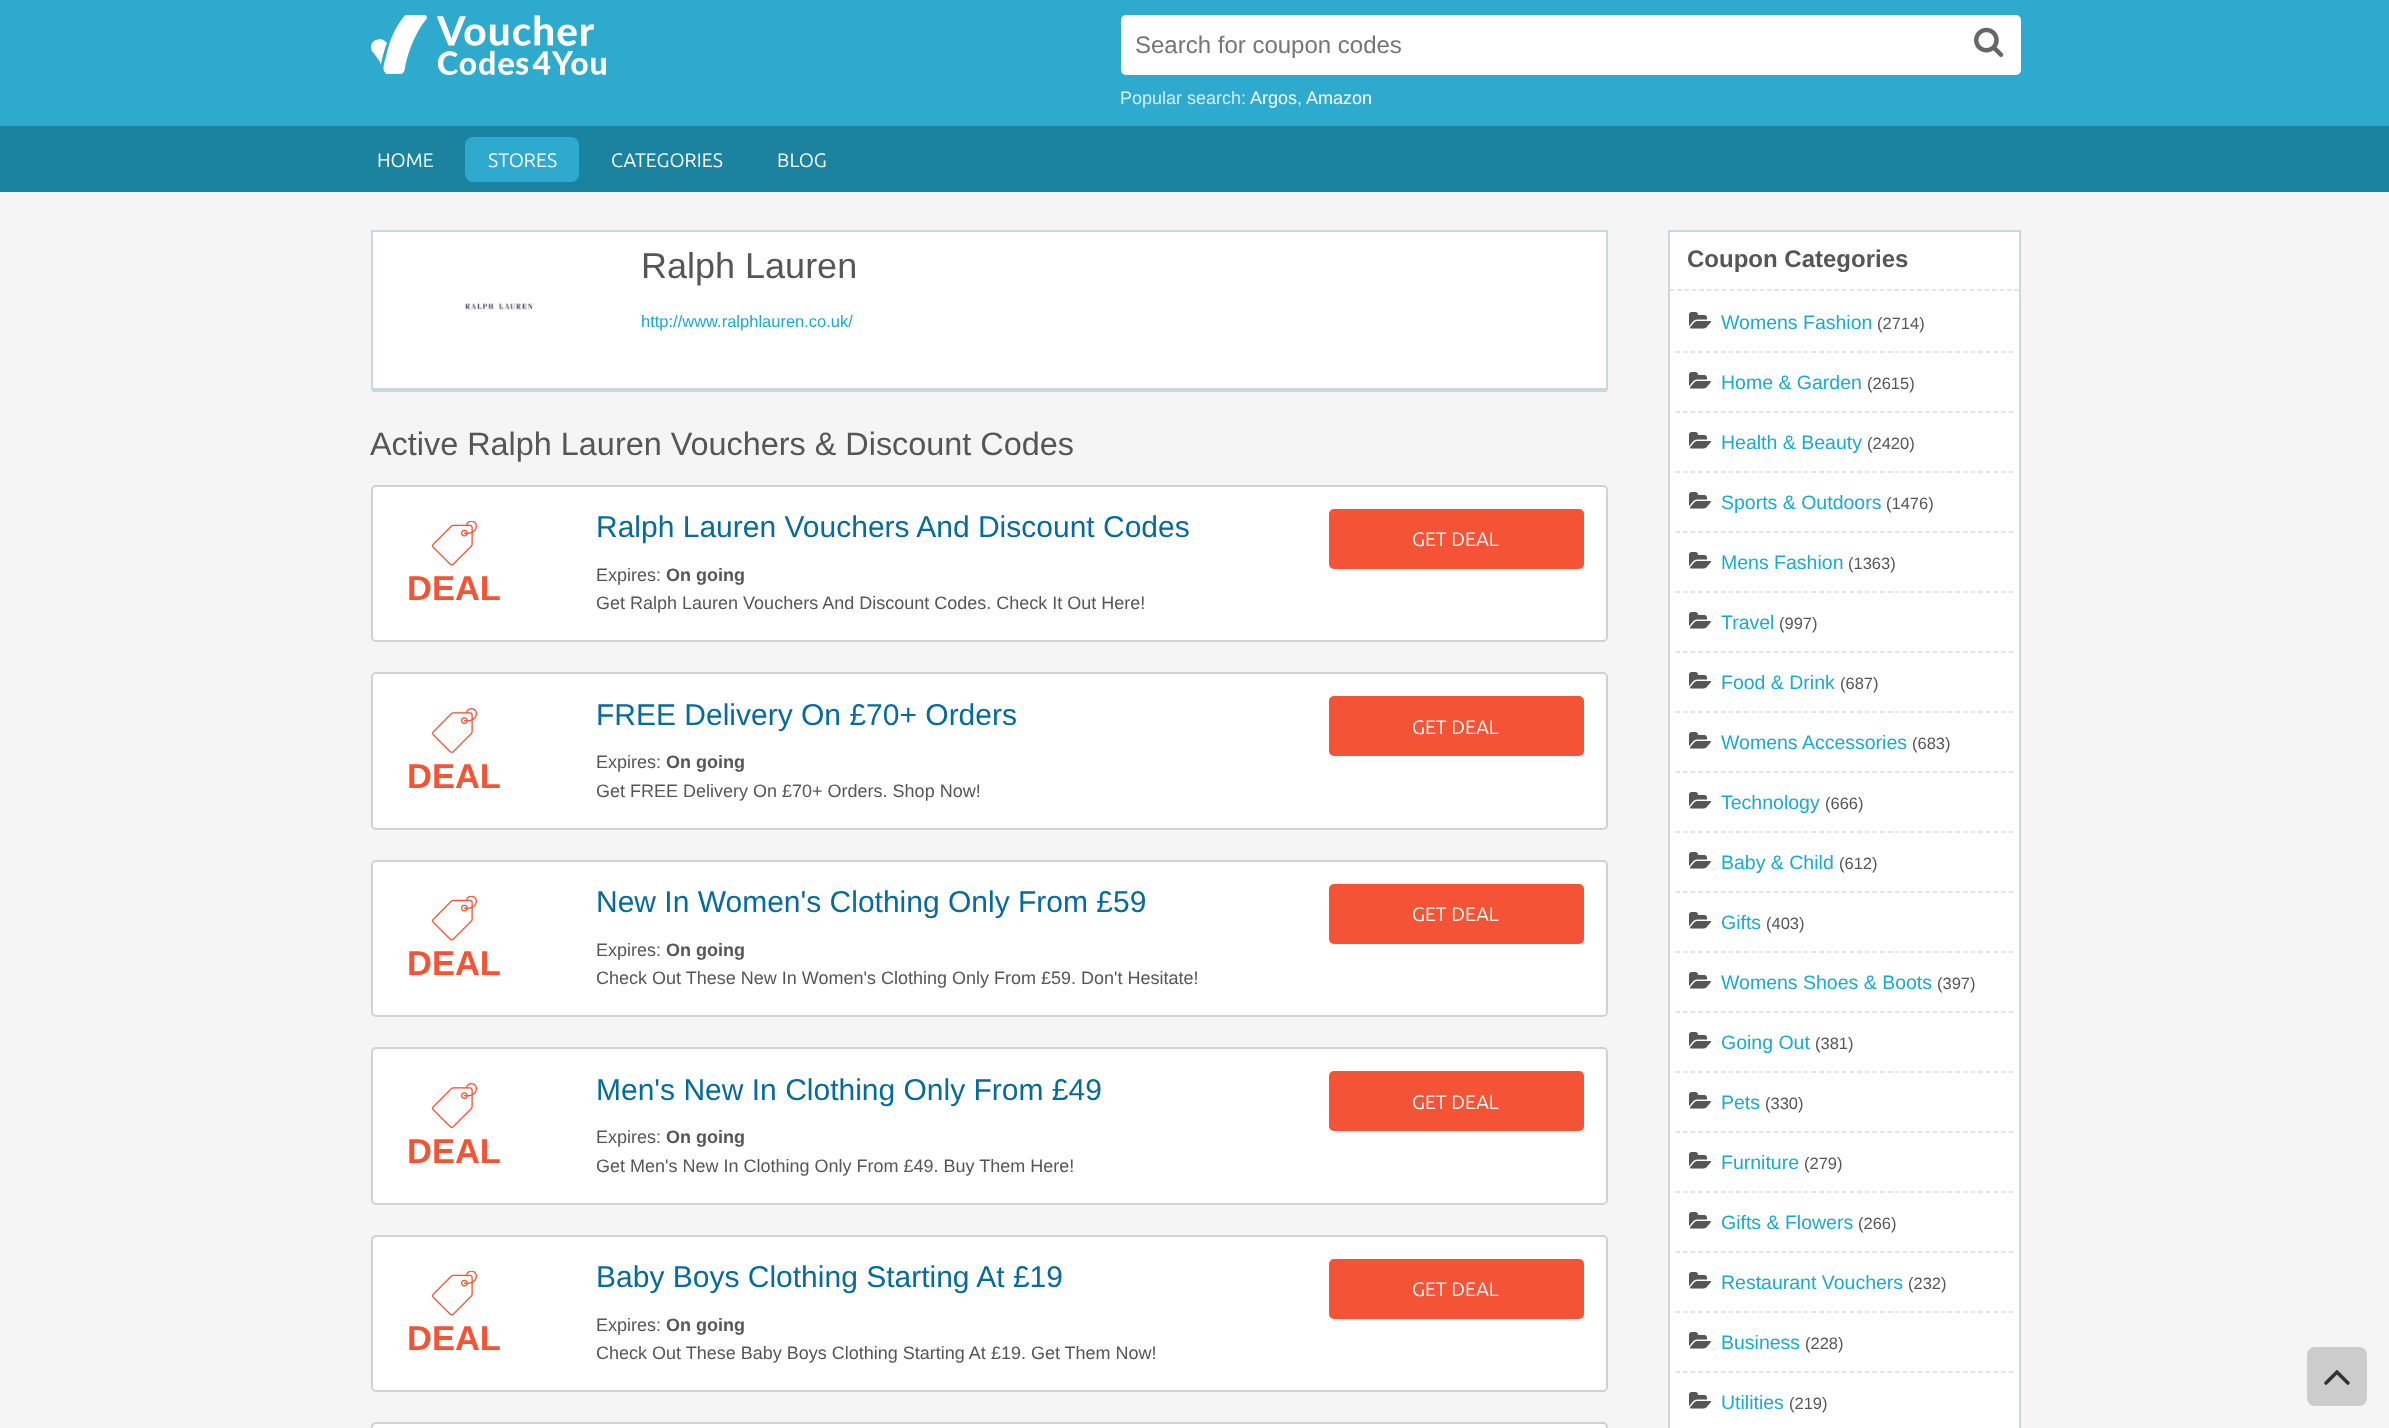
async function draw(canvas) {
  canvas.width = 2389;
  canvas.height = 1428;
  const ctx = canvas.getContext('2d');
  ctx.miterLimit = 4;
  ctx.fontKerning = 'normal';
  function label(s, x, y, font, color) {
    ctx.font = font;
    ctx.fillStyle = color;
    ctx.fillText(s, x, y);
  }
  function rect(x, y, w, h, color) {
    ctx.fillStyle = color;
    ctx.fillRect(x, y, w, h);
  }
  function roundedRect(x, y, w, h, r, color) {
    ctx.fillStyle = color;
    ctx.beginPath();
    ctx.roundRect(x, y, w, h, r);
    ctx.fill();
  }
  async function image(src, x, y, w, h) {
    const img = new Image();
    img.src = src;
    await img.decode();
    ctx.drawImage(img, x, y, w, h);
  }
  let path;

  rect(0, 0, 2389, 1428, '#f5f5f5');
  rect(0, 0, 2389, 126, '#2daacd');
  await image('assets/img1.png', 371, 15, 235, 60);
  roundedRect(1121, 15, 900, 60, 5, '#fff');
  label('Search for coupon codes', 1135, 53, '24px Liberation Sans', '#757575');
  await image('assets/img2.png', 1974, 27, 30, 30);
  label('Popular search:', 1120, 104, '18px Liberation Sans', '#d5eef5');
  label('Argos', 1250, 104, '18px Liberation Sans', '#fff');
  label(',', 1297, 104, '18px Liberation Sans', '#d5eef5');
  label('Amazon', 1306, 104, '18px Liberation Sans', '#fff');
  rect(0, 126, 2389, 66, '#1b83a0');
  label('HOME', 377, 167, '19.5px Ubuntu', '#fff');
  roundedRect(465, 137, 114, 45, 8, '#2daacd');
  label('STORES', 488, 167, '19.5px Ubuntu', '#fff');
  label('CATEGORIES', 611, 167, '19.5px Ubuntu', '#fff');
  label('BLOG', 777, 167, '19.5px Ubuntu', '#fff');
  rect(372, 390, 1235, 2, '#cbd8d8');
  ctx.fillStyle = '#fff';
  ctx.beginPath();
  ctx.rect(372, 231, 1235, 158);
  ctx.fill();
  ctx.strokeStyle = '#cbd8d8';
  ctx.lineWidth = 2;
  ctx.stroke();
  await image('assets/img3.png', 465, 303, 68, 7);
  label('Ralph Lauren', 641, 278, '36px Liberation Sans', '#555655');
  label('http://www.ralphlauren.co.uk/', 641, 327, '16.5px Liberation Sans', '#19aacf');
  label('Active Ralph Lauren Vouchers & Discount Codes', 370, 455, '32.4px Liberation Sans', '#555655');
  ctx.fillStyle = '#fff';
  ctx.beginPath();
  ctx.roundRect(372, 486, 1235, 155, 4);
  ctx.fill();
  ctx.strokeStyle = '#d1d1d1';
  ctx.stroke();
  await image('assets/img4.png', 432, 521, 45, 45);
  label('DEAL', 407, 600, 'bold 34.5px Liberation Sans', '#f45435');
  label('Ralph Lauren Vouchers And Discount Codes', 596, 537, '30px Liberation Sans', '#056b9c');
  label('Expires:', 596, 581, '18px Liberation Sans', '#555655');
  label('On going', 666, 581, 'bold 18px Liberation Sans', '#555655');
  label('Get Ralph Lauren Vouchers And Discount Codes. Check It Out Here!', 596, 609, '18px Liberation Sans', '#555655');
  roundedRect(1329, 509, 255, 60, 5, '#f45435');
  label('GET DEAL', 1412, 546, '19.5px Ubuntu', '#fff');
  ctx.beginPath();
  ctx.roundRect(372, 673, 1235, 156, 4);
  ctx.fill();
  ctx.stroke();
  await image('assets/img5.png', 432, 708, 45, 45);
  label('DEAL', 407, 788, 'bold 34.5px Liberation Sans', '#f45435');
  label('FREE Delivery On £70+ Orders', 596, 725, '30px Liberation Sans', '#056b9c');
  label('Expires:', 596, 768, '18px Liberation Sans', '#555655');
  label('On going', 666, 768, 'bold 18px Liberation Sans', '#555655');
  label('Get FREE Delivery On £70+ Orders. Shop Now!', 596, 797, '18px Liberation Sans', '#555655');
  roundedRect(1329, 696, 255, 60, 5, '#f45435');
  label('GET DEAL', 1412, 734, '19.5px Ubuntu', '#fff');
  ctx.beginPath();
  ctx.roundRect(372, 861, 1235, 155, 4);
  ctx.fill();
  ctx.stroke();
  await image('assets/img4.png', 432, 896, 45, 45);
  label('DEAL', 407, 975, 'bold 34.5px Liberation Sans', '#f45435');
  label('New In Women\'s Clothing Only From £59', 596, 912, '30px Liberation Sans', '#056b9c');
  label('Expires:', 596, 956, '18px Liberation Sans', '#555655');
  label('On going', 666, 956, 'bold 18px Liberation Sans', '#555655');
  label('Check Out These New In Women\'s Clothing Only From £59. Don\'t Hesitate!', 596, 984, '18px Liberation Sans', '#555655');
  roundedRect(1329, 884, 255, 60, 5, '#f45435');
  label('GET DEAL', 1412, 921, '19.5px Ubuntu', '#fff');
  ctx.beginPath();
  ctx.roundRect(372, 1048, 1235, 156, 4);
  ctx.fill();
  ctx.stroke();
  await image('assets/img5.png', 432, 1083, 45, 45);
  label('DEAL', 407, 1163, 'bold 34.5px Liberation Sans', '#f45435');
  label('Men\'s New In Clothing Only From £49', 596, 1100, '30px Liberation Sans', '#056b9c');
  label('Expires:', 596, 1143, '18px Liberation Sans', '#555655');
  label('On going', 666, 1143, 'bold 18px Liberation Sans', '#555655');
  label('Get Men\'s New In Clothing Only From £49. Buy Them Here!', 596, 1172, '18px Liberation Sans', '#555655');
  roundedRect(1329, 1071, 255, 60, 5, '#f45435');
  label('GET DEAL', 1412, 1109, '19.5px Ubuntu', '#fff');
  ctx.beginPath();
  ctx.roundRect(372, 1236, 1235, 155, 4);
  ctx.fill();
  ctx.stroke();
  await image('assets/img4.png', 432, 1271, 45, 45);
  label('DEAL', 407, 1350, 'bold 34.5px Liberation Sans', '#f45435');
  label('Baby Boys Clothing Starting At £19', 596, 1287, '30px Liberation Sans', '#056b9c');
  label('Expires:', 596, 1331, '18px Liberation Sans', '#555655');
  label('On going', 666, 1331, 'bold 18px Liberation Sans', '#555655');
  label('Check Out These Baby Boys Clothing Starting At £19. Get Them Now!', 596, 1359, '18px Liberation Sans', '#555655');
  roundedRect(1329, 1259, 255, 60, 5, '#f45435');
  label('GET DEAL', 1412, 1296, '19.5px Ubuntu', '#fff');
  ctx.beginPath();
  ctx.roundRect(372, 1423, 1235, 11, 4);
  ctx.fill();
  ctx.stroke();
  ctx.beginPath();
  ctx.rect(1669, 231, 351, 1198);
  ctx.fill();
  ctx.strokeStyle = '#cbd8d8';
  ctx.stroke();
  path = new Path2D('M1669.5 290H2019');
  ctx.strokeStyle = '#dcdcdc';
  ctx.lineWidth = 1.5;
  ctx.setLineDash([4.5, 3]);
  ctx.stroke(path);
  label('Coupon Categories', 1687, 267, 'bold 24px Liberation Sans', '#555655');
  path = new Path2D('M1675.5 352H2013');
  ctx.strokeStyle = '#dbdbdb';
  ctx.setLineDash([4.5, 3.07]);
  ctx.stroke(path);
  await image('assets/img6.png', 1689, 312, 22, 17);
  label('Womens Fashion', 1721, 329, '19.5px Liberation Sans', '#19aacf');
  label('(2714)', 1877, 329, '16.5px Liberation Sans', '#555655');
  path = new Path2D('M1675.5 412H2013');
  ctx.stroke(path);
  await image('assets/img6.png', 1689, 372, 22, 17);
  label('Home & Garden', 1721, 389, '19.5px Liberation Sans', '#19aacf');
  label('(2615)', 1867, 389, '16.5px Liberation Sans', '#555655');
  path = new Path2D('M1675.5 472H2013');
  ctx.stroke(path);
  await image('assets/img6.png', 1689, 432, 22, 17);
  label('Health & Beauty', 1721, 449, '19.5px Liberation Sans', '#19aacf');
  label('(2420)', 1867, 449, '16.5px Liberation Sans', '#555655');
  path = new Path2D('M1675.5 532H2013');
  ctx.stroke(path);
  await image('assets/img6.png', 1689, 492, 22, 17);
  label('Sports & Outdoors', 1721, 509, '19.5px Liberation Sans', '#19aacf');
  label('(1476)', 1886, 509, '16.5px Liberation Sans', '#555655');
  path = new Path2D('M1675.5 592H2013');
  ctx.stroke(path);
  await image('assets/img6.png', 1689, 552, 22, 17);
  label('Mens Fashion', 1721, 569, '19.5px Liberation Sans', '#19aacf');
  label('(1363)', 1848, 569, '16.5px Liberation Sans', '#555655');
  path = new Path2D('M1675.5 652H2013');
  ctx.stroke(path);
  await image('assets/img6.png', 1689, 612, 22, 17);
  label('Travel', 1721, 629, '19.5px Liberation Sans', '#19aacf');
  label('(997)', 1779, 629, '16.5px Liberation Sans', '#555655');
  path = new Path2D('M1675.5 712H2013');
  ctx.stroke(path);
  await image('assets/img6.png', 1689, 672, 22, 17);
  label('Food & Drink', 1721, 689, '19.5px Liberation Sans', '#19aacf');
  label('(687)', 1840, 689, '16.5px Liberation Sans', '#555655');
  path = new Path2D('M1675.5 772H2013');
  ctx.stroke(path);
  await image('assets/img6.png', 1689, 732, 22, 17);
  label('Womens Accessories', 1721, 749, '19.5px Liberation Sans', '#19aacf');
  label('(683)', 1912, 749, '16.5px Liberation Sans', '#555655');
  path = new Path2D('M1675.5 832H2013');
  ctx.stroke(path);
  await image('assets/img6.png', 1689, 792, 22, 17);
  label('Technology', 1721, 809, '19.5px Liberation Sans', '#19aacf');
  label('(666)', 1825, 809, '16.5px Liberation Sans', '#555655');
  path = new Path2D('M1675.5 892H2013');
  ctx.stroke(path);
  await image('assets/img6.png', 1689, 852, 22, 17);
  label('Baby & Child', 1721, 869, '19.5px Liberation Sans', '#19aacf');
  label('(612)', 1839, 869, '16.5px Liberation Sans', '#555655');
  path = new Path2D('M1675.5 952H2013');
  ctx.stroke(path);
  await image('assets/img6.png', 1689, 912, 22, 17);
  label('Gifts', 1721, 929, '19.5px Liberation Sans', '#19aacf');
  label('(403)', 1766, 929, '16.5px Liberation Sans', '#555655');
  path = new Path2D('M1675.5 1012H2013');
  ctx.stroke(path);
  await image('assets/img6.png', 1689, 972, 22, 17);
  label('Womens Shoes & Boots', 1721, 989, '19.5px Liberation Sans', '#19aacf');
  label('(397)', 1937, 989, '16.5px Liberation Sans', '#555655');
  path = new Path2D('M1675.5 1072H2013');
  ctx.stroke(path);
  await image('assets/img6.png', 1689, 1032, 22, 17);
  label('Going Out', 1721, 1049, '19.5px Liberation Sans', '#19aacf');
  label('(381)', 1815, 1049, '16.5px Liberation Sans', '#555655');
  path = new Path2D('M1675.5 1132H2013');
  ctx.stroke(path);
  await image('assets/img6.png', 1689, 1092, 22, 17);
  label('Pets', 1721, 1109, '19.5px Liberation Sans', '#19aacf');
  label('(330)', 1765, 1109, '16.5px Liberation Sans', '#555655');
  path = new Path2D('M1675.5 1192H2013');
  ctx.stroke(path);
  await image('assets/img6.png', 1689, 1152, 22, 17);
  label('Furniture', 1721, 1169, '19.5px Liberation Sans', '#19aacf');
  label('(279)', 1804, 1169, '16.5px Liberation Sans', '#555655');
  path = new Path2D('M1675.5 1252H2013');
  ctx.stroke(path);
  await image('assets/img6.png', 1689, 1212, 22, 17);
  label('Gifts & Flowers', 1721, 1229, '19.5px Liberation Sans', '#19aacf');
  label('(266)', 1858, 1229, '16.5px Liberation Sans', '#555655');
  path = new Path2D('M1675.5 1312H2013');
  ctx.stroke(path);
  await image('assets/img6.png', 1689, 1272, 22, 17);
  label('Restaurant Vouchers', 1721, 1289, '19.5px Liberation Sans', '#19aacf');
  label('(232)', 1908, 1289, '16.5px Liberation Sans', '#555655');
  path = new Path2D('M1675.5 1372H2013');
  ctx.stroke(path);
  await image('assets/img6.png', 1689, 1332, 22, 17);
  label('Business', 1721, 1349, '19.5px Liberation Sans', '#19aacf');
  label('(228)', 1805, 1349, '16.5px Liberation Sans', '#555655');
  await image('assets/img6.png', 1689, 1392, 22, 17);
  label('Utilities', 1721, 1409, '19.5px Liberation Sans', '#19aacf');
  label('(219)', 1789, 1409, '16.5px Liberation Sans', '#555655');
  roundedRect(2307, 1347, 60, 59, 8, '#ccc');
  await image('assets/img7.png', 2324, 1370, 26, 15);
}

draw(document.querySelector('canvas'));
